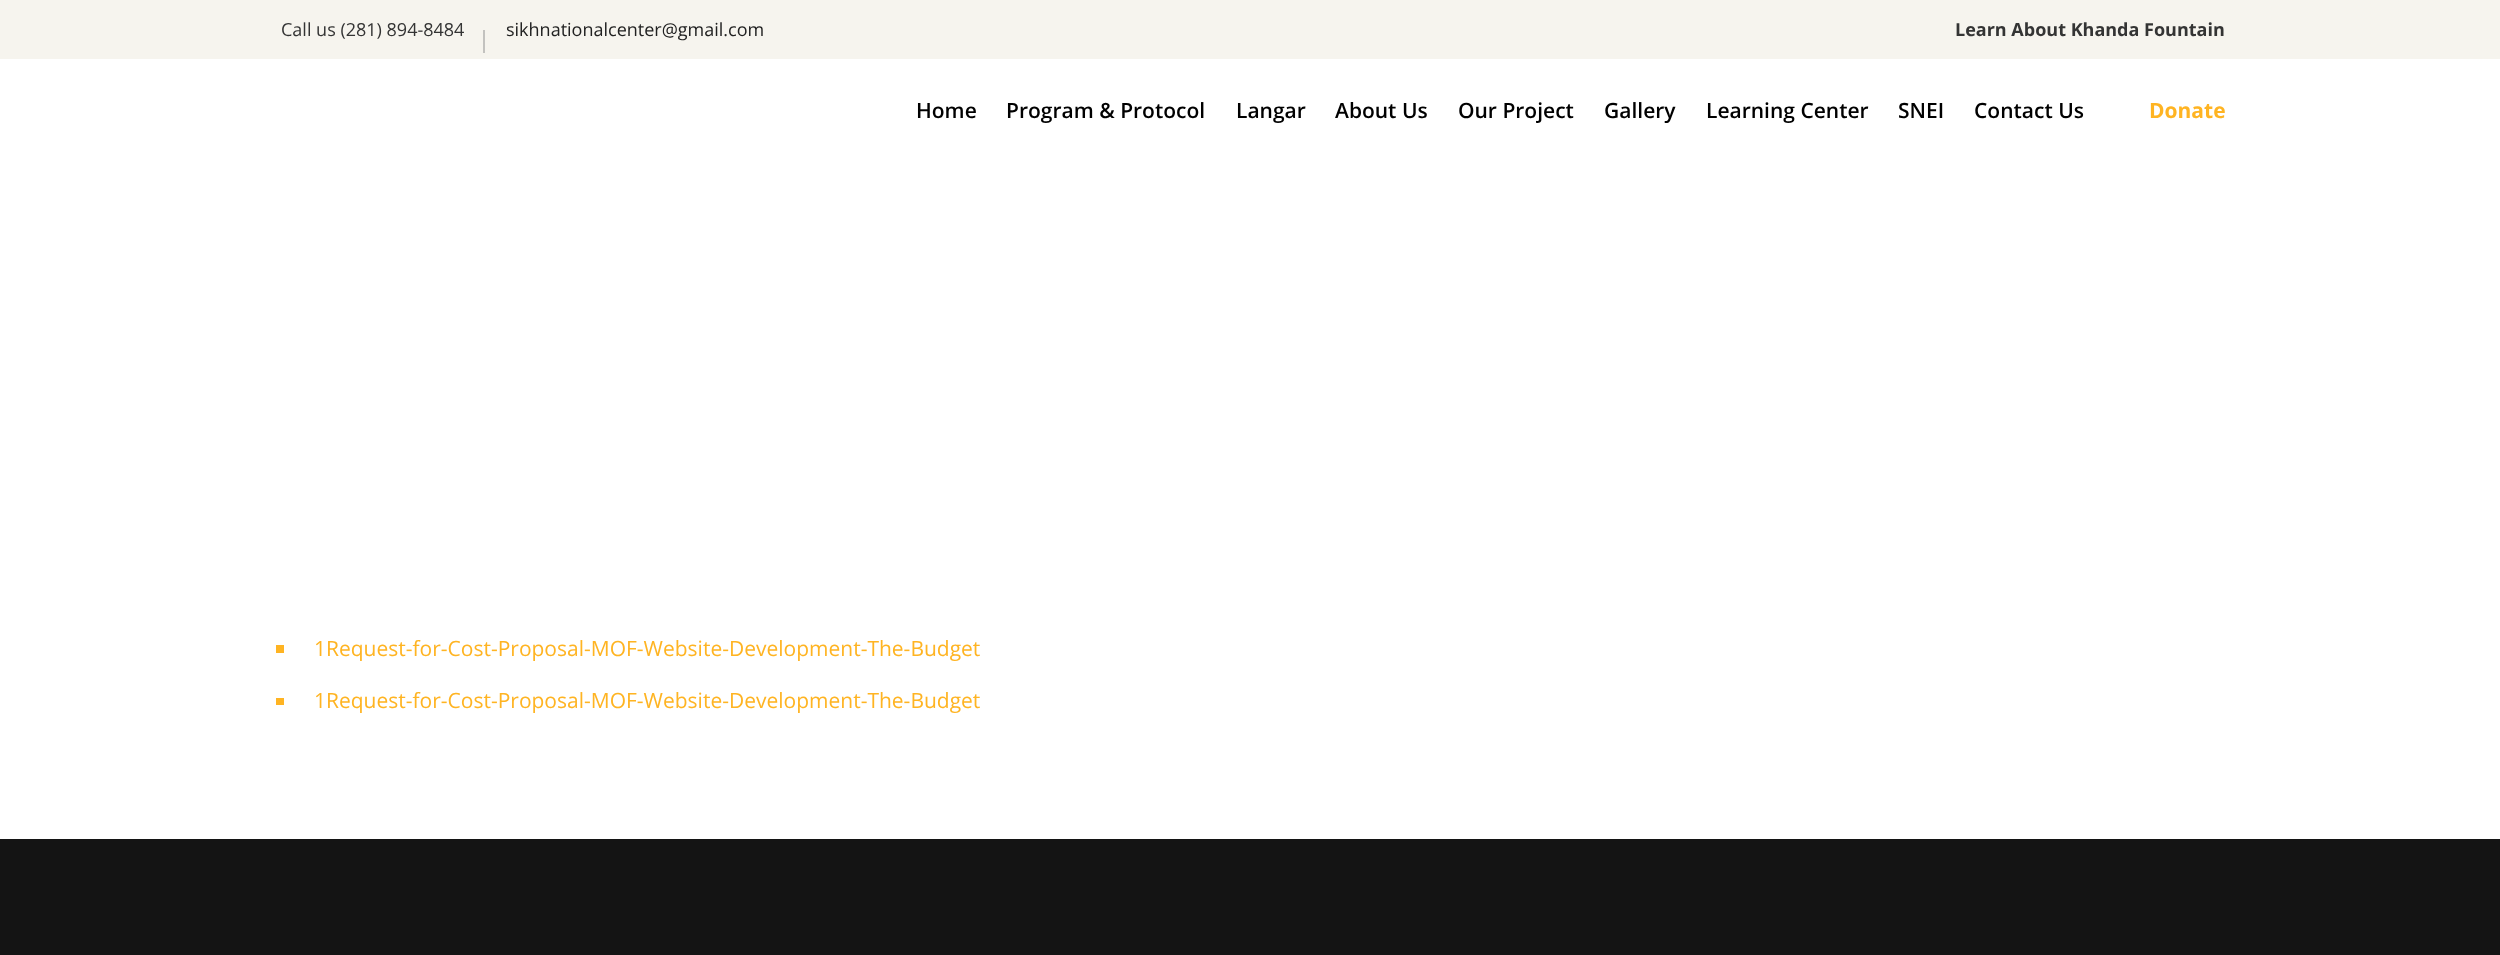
async function draw(canvas) {
  canvas.width = 2500;
  canvas.height = 955;
  const ctx = canvas.getContext('2d');
  ctx.miterLimit = 4;
  ctx.fontKerning = 'normal';
  function label(s, x, y, font, color) {
    ctx.font = font;
    ctx.fillStyle = color;
    ctx.fillText(s, x, y);
  }
  function rect(x, y, w, h, color) {
    ctx.fillStyle = color;
    ctx.fillRect(x, y, w, h);
  }

  rect(0, 0, 2500, 955, '#fff');
  rect(0, 0, 2500, 59, '#f6f4ee');
  label('Call us (281) 894-8484', 281, 36, '18px Open Sans', '#343434');
  rect(483, 30, 2, 23, '#c3c2bf');
  label('sikhnationalcenter@gmail.com', 506, 36, '18px Open Sans', '#212121');
  label('Learn About Khanda Fountain', 1955, 36, 'bold 18px Open Sans', '#343434');
  label('Home', 916, 118, '600 21px Open Sans', '#000');
  label('Program & Protocol', 1006, 118, '600 21px Open Sans', '#000');
  label('Langar', 1236, 118, '600 21px Open Sans', '#000');
  label('About Us', 1335, 118, '600 21px Open Sans', '#000');
  label('Our Project', 1458, 118, '600 21px Open Sans', '#000');
  label('Gallery', 1604, 118, '600 21px Open Sans', '#000');
  label('Learning Center', 1706, 118, '600 21px Open Sans', '#000');
  label('SNEI', 1898, 118, '600 21px Open Sans', '#000');
  label('Contact Us', 1974, 118, '600 21px Open Sans', '#000');
  label('Donate', 2149, 118, 'bold 21px Open Sans', '#ffb422');
  rect(276, 645, 8, 8, '#ffb422');
  label('1Request-for-Cost-Proposal-MOF-Website-Development-The-Budget', 314, 656, '21px Open Sans', '#ffb422');
  rect(276, 698, 8, 7, '#ffb422');
  label('1Request-for-Cost-Proposal-MOF-Website-Development-The-Budget', 314, 708, '21px Open Sans', '#ffb422');
  rect(0, 839, 2500, 116, '#141414');
}

draw(document.querySelector('canvas'));
